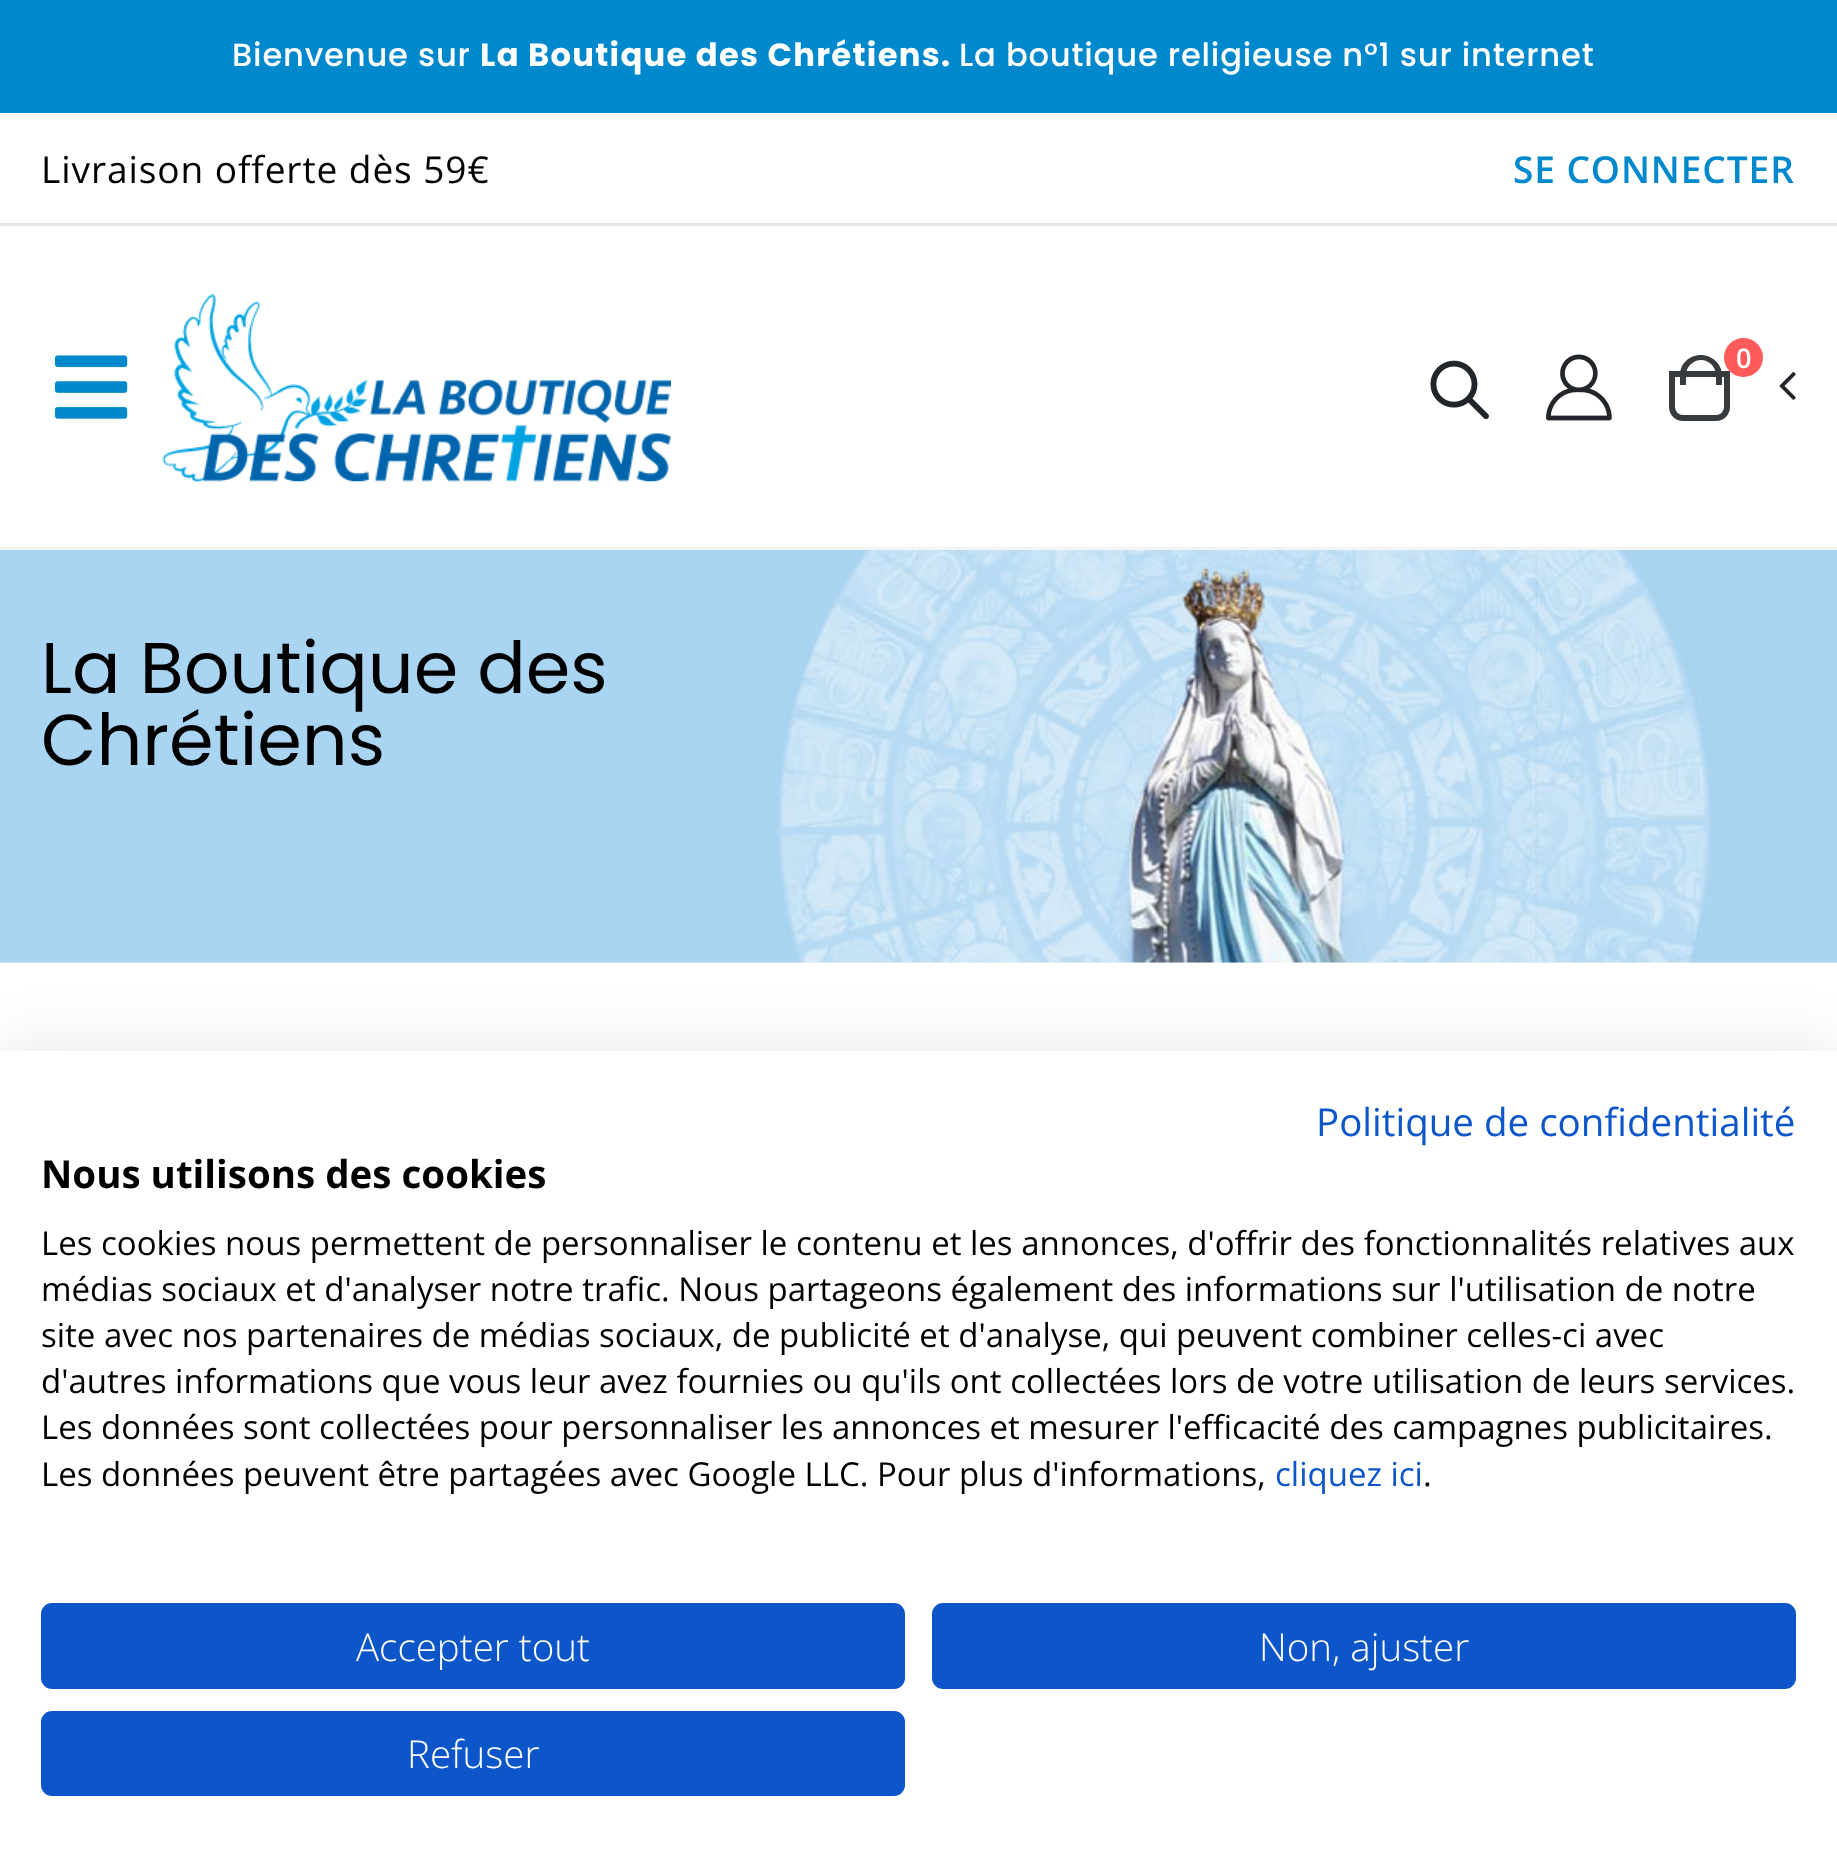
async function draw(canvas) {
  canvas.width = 1837;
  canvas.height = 1869;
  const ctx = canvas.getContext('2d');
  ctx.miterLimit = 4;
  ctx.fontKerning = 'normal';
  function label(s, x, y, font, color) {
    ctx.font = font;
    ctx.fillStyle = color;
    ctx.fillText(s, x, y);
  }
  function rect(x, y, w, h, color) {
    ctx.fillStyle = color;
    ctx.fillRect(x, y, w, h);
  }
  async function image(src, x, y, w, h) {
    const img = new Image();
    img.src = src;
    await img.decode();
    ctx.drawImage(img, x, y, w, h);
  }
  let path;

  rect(0, 0, 1837, 1869, '#fff');
  rect(0, 0, 1837, 113, '#08c');
  ctx.letterSpacing = '0.8px';
  label('Bienvenue sur', 232, 66, '500 32.2px Poppins', '#fff');
  ctx.letterSpacing = '1.3px';
  label('La Boutique des Chrétiens.', 480, 66, 'bold 32.2px Poppins', '#fff');
  ctx.letterSpacing = '0.8px';
  label('La boutique religieuse n°1 sur internet', 959, 66, '500 32.2px Poppins', '#fff');
  rect(0, 547, 1837, 3, '#f4f4f4');
  ctx.letterSpacing = '0.9px';
  label('Livraison offerte dès 59€', 41, 183, '37.1px Open Sans', '#000');
  label('SE CONNECTER', 1513, 183, '600 37.1px Open Sans', '#08c');
  rect(0, 223, 1837, 3, '#e7e7e7');
  await image('assets/img1.png', 55, 355, 73, 64);
  await image('assets/img2.png', 162, 294, 509, 188);
  await image('assets/img3.png', 1430, 360, 59, 60);
  await image('assets/img4.png', 1546, 354, 66, 67);
  ctx.beginPath();
  ctx.roundRect(1672, 374, 55, 44, [0, 0, 11, 11]);
  ctx.strokeStyle = '#383b3e';
  ctx.lineWidth = 6;
  ctx.stroke();
  ctx.fillStyle = '#383b3e';
  path = new Path2D('M1701 355C1712 355 1722 364 1722 375V385H1680V375C1680 364 1689 355 1701 355ZM1701 360C1709 360 1716 367 1716 375V385H1686V375C1686 367 1693 360 1701 360Z');
  ctx.fill(path, 'evenodd');
  ctx.fillStyle = '#ff5b5b';
  ctx.beginPath();
  ctx.arc(1743.5, 357.5, 19.5, 0, 2 * Math.PI);
  ctx.fill();
  ctx.letterSpacing = '0px';
  label('0', 1736, 368, '600 27px Open Sans', '#fff');
  await image('assets/img5.png', 1779, 372, 17, 28);
  rect(0, 962, 1837, 1, '#f4f4f4');
  await image('assets/img6.png', 0, 550, 1837, 413);
  label('La Boutique des', 41, 693, '71.75px Poppins', '#000');
  label('Chrétiens', 41, 765, '71.75px Poppins', '#000');
  ctx.fillStyle = '#0000001a';
  ctx.filter = 'blur(33px)';
  ctx.beginPath();
  ctx.rect(0, 1051, 1837, 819);
  ctx.fill();
  ctx.filter = 'none';
  rect(0, 1051, 1837, 818, '#fff');
  label('Politique de confidentialité', 1316, 1136, '38.5px Open Sans', '#0d56c9');
  label('Nous utilisons des cookies', 41, 1188, 'bold 38.5px Open Sans', '#000');
  label('Les cookies nous permettent de personnaliser le contenu et les annonces, d\'offrir des fonctionnalités relatives aux', 41, 1255, '33px Open Sans', '#000');
  label('médias sociaux et d\'analyser notre trafic. Nous partageons également des informations sur l\'utilisation de notre', 41, 1301, '33px Open Sans', '#000');
  label('site avec nos partenaires de médias sociaux, de publicité et d\'analyse, qui peuvent combiner celles-ci avec', 41, 1347, '33px Open Sans', '#000');
  label('d\'autres informations que vous leur avez fournies ou qu\'ils ont collectées lors de votre utilisation de leurs services.', 41, 1393, '33px Open Sans', '#000');
  label('Les données sont collectées pour personnaliser les annonces et mesurer l\'efficacité des campagnes publicitaires.', 41, 1439, '33px Open Sans', '#000');
  label('Les données peuvent être partagées avec Google LLC. Pour plus d\'informations,', 41, 1486, '33px Open Sans', '#000');
  label('cliquez ici', 1275, 1486, '33px Open Sans', '#0d56c9');
  label('.', 1423, 1486, '33px Open Sans', '#000');
  ctx.fillStyle = '#0d56c9';
  ctx.beginPath();
  ctx.roundRect(42.5, 1604.5, 861, 83, 9.5);
  ctx.fill();
  ctx.strokeStyle = '#0d56c9';
  ctx.lineWidth = 3;
  ctx.stroke();
  label('Accepter tout', 356, 1661, '300 38.5px Open Sans', '#fff');
  ctx.fillStyle = '#0d56c9';
  ctx.beginPath();
  ctx.roundRect(933.5, 1604.5, 861, 83, 9.5);
  ctx.fill();
  ctx.stroke();
  label('Non, ajuster', 1259, 1661, '300 38.5px Open Sans', '#fff');
  ctx.fillStyle = '#0d56c9';
  ctx.beginPath();
  ctx.roundRect(42.5, 1712.5, 861, 82, 9.5);
  ctx.fill();
  ctx.stroke();
  label('Refuser', 407, 1768, '300 38.5px Open Sans', '#fff');
}

draw(document.querySelector('canvas'));
